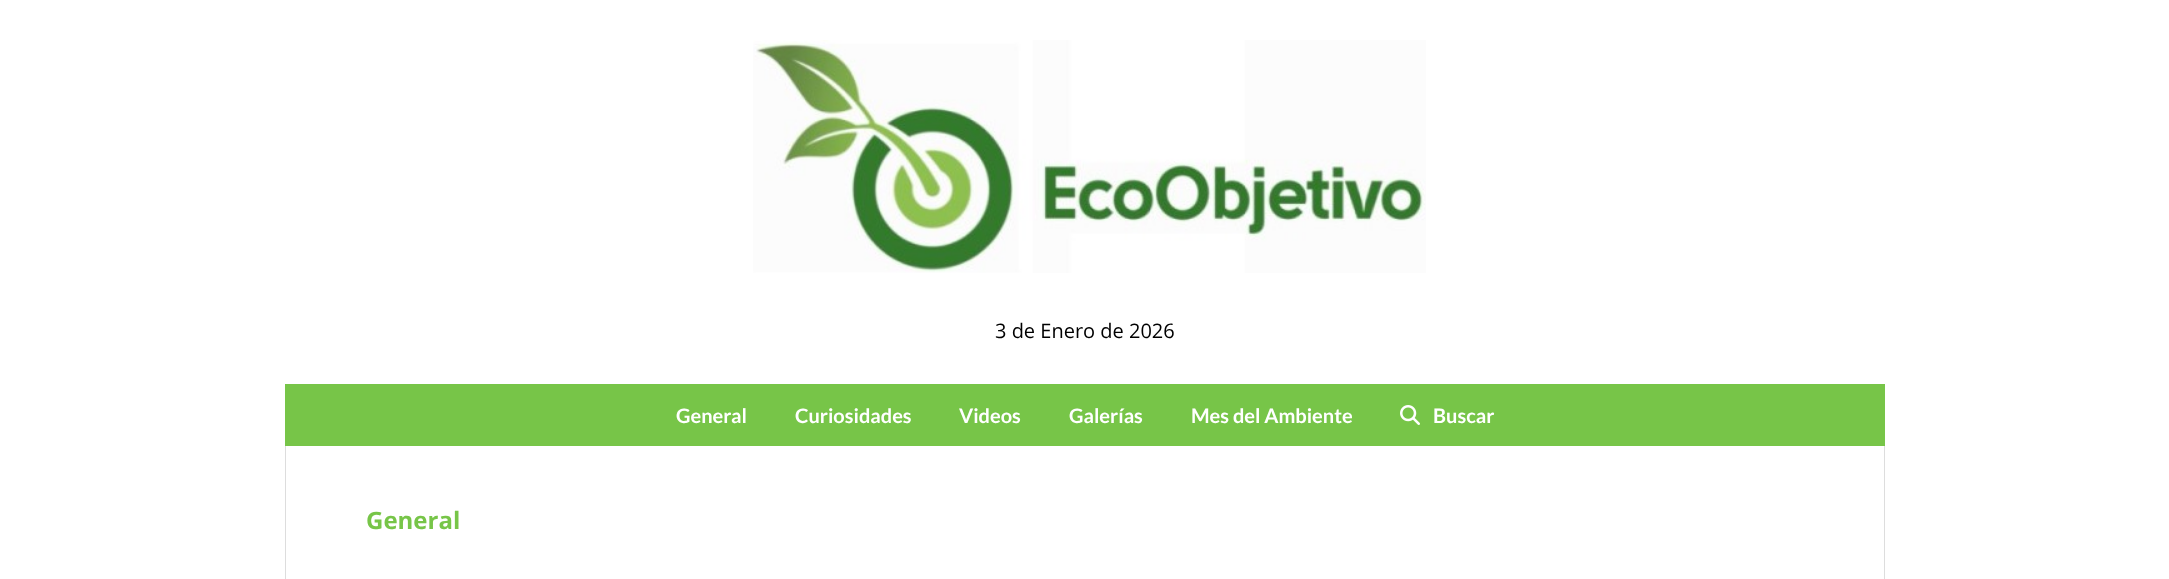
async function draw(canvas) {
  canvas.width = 2169;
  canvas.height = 579;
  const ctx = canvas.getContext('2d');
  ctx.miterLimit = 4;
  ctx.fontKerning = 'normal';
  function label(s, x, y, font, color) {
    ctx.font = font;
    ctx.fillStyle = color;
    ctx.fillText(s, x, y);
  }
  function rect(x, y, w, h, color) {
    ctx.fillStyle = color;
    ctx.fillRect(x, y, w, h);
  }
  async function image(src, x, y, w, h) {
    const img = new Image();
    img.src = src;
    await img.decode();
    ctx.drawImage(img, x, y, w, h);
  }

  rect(0, 0, 2169, 579, '#fff');
  await image('assets/img1.png', 753, 40, 673, 233);
  label('3 de Enero de 2026', 995, 338, '20px Open Sans', '#000');
  rect(285, 384, 1600, 62, '#77c548');
  label('General', 676, 423, 'bold 20px Lato', '#fff');
  label('Curiosidades', 795, 423, 'bold 20px Lato', '#fff');
  label('Videos', 959, 423, 'bold 20px Lato', '#fff');
  label('Galerías', 1069, 423, 'bold 20px Lato', '#fff');
  label('Mes del Ambiente', 1191, 423, 'bold 20px Lato', '#fff');
  await image('assets/img2.png', 1400, 405, 20, 20);
  label('Buscar', 1433, 423, 'bold 20px Lato', '#fff');
  rect(1884, 446, 1, 133, '#ddd');
  rect(285, 446, 1, 133, '#ddd');
  label('General', 366, 529, 'bold 24px Open Sans', '#77c548');
}

draw(document.querySelector('canvas'));
